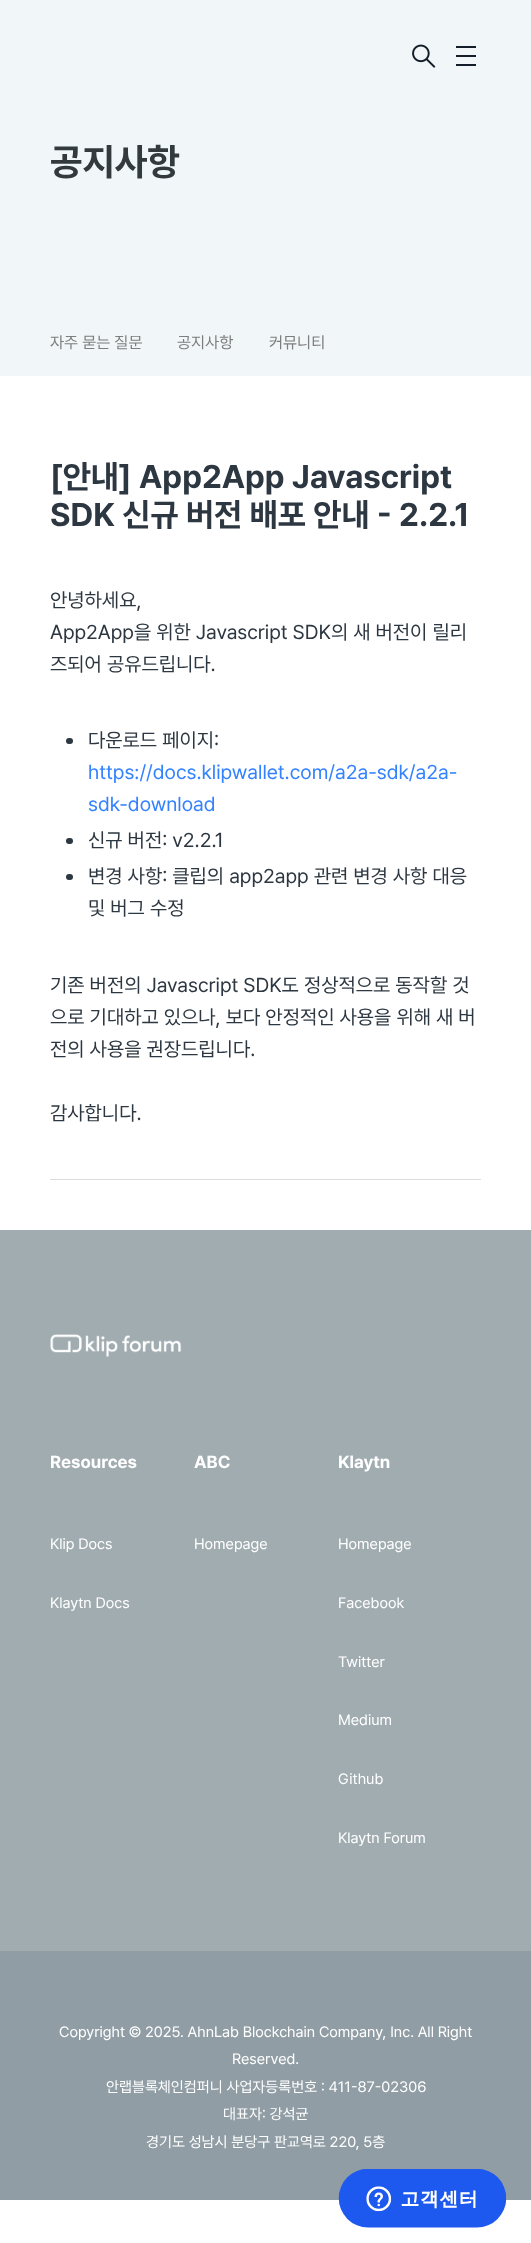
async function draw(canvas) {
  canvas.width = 531;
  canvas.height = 2243;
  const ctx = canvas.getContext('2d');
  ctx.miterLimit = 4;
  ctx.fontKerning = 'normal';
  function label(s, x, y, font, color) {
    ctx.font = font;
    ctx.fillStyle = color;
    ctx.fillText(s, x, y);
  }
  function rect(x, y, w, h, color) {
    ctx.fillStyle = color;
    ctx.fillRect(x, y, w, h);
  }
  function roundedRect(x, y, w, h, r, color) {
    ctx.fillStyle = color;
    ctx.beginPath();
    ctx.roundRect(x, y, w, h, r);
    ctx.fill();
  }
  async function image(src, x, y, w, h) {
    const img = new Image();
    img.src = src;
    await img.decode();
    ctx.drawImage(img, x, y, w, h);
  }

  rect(0, 0, 531, 2243, '#fff');
  rect(0, 0, 531, 376, '#f1f7f9');
  await image('assets/img1.png', 412, 44, 24, 24);
  rect(456, 46, 20, 2, '#141e28');
  rect(456, 55, 20, 2, '#141e28');
  rect(456, 64, 20, 2, '#141e28');
  label('공지사항', 50, 175, 'bold 37.5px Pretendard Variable', '#333a3d');
  label('자주 묻는 질문', 50, 348, '16.25px Pretendard Variable', '#7d7d7d');
  label('공지사항', 177, 348, '16.25px Pretendard Variable', '#7d7d7d');
  label('커뮤니티', 269, 348, '16.25px Pretendard Variable', '#7d7d7d');
  label('[안내] App2App Javascript', 50, 488, 'bold 32.5px Pretendard Variable', '#2d3741');
  label('SDK 신규 버전 배포 안내 - 2.2.1', 50, 526, 'bold 32.5px Pretendard Variable', '#2d3741');
  label('안녕하세요,', 50, 607, '20px Pretendard Variable', '#2d3741');
  label('App2App을 위한 Javascript SDK의 새 버전이 릴리', 50, 639, '20px Pretendard Variable', '#2d3741');
  label('즈되어 공유드립니다.', 50, 671, '20px Pretendard Variable', '#2d3741');
  roundedRect(66, 738, 7, 6, 3, '#2d3741');
  label('다운로드 페이지:', 88, 747, '20px Pretendard Variable', '#2d3741');
  label('https://docs.klipwallet.com/a2a-sdk/a2a-', 88, 779, '20px Pretendard Variable', '#3382ff');
  label('sdk-download', 88, 811, '20px Pretendard Variable', '#3382ff');
  roundedRect(66, 838, 7, 6, 3, '#2d3741');
  label('신규 버전: v2.2.1', 88, 847, '20px Pretendard Variable', '#2d3741');
  roundedRect(66, 874, 7, 6, 3, '#2d3741');
  label('변경 사항: 클립의 app2app 관련 변경 사항 대응', 88, 883, '20px Pretendard Variable', '#2d3741');
  label('및 버그 수정', 88, 915, '20px Pretendard Variable', '#2d3741');
  label('기존 버전의 Javascript SDK도 정상적으로 동작할 것', 50, 992, '20px Pretendard Variable', '#2d3741');
  label('으로 기대하고 있으나, 보다 안정적인 사용을 위해 새 버', 50, 1024, '20px Pretendard Variable', '#2d3741');
  label('전의 사용을 권장드립니다.', 50, 1056, '20px Pretendard Variable', '#2d3741');
  label('감사합니다.', 50, 1120, '20px Pretendard Variable', '#2d3741');
  rect(50, 1179, 431, 1, '#ddd');
  rect(0, 1230, 531, 721, '#a1acb1');
  await image('assets/img2.png', 50, 1334, 132, 23);
  label('Resources', 50, 1468, 'bold 17.5px Pretendard Variable', '#fff');
  label('Klip Docs', 50, 1549, '15px Pretendard Variable', '#fff');
  label('Klaytn Docs', 50, 1608, '15px Pretendard Variable', '#fff');
  label('ABC', 194, 1468, 'bold 17.5px Pretendard Variable', '#fff');
  label('Homepage', 194, 1549, '15px Pretendard Variable', '#fff');
  label('Klaytn', 338, 1468, 'bold 17.5px Pretendard Variable', '#fff');
  label('Homepage', 338, 1549, '15px Pretendard Variable', '#fff');
  label('Facebook', 338, 1608, '15px Pretendard Variable', '#fff');
  label('Twitter', 338, 1667, '15px Pretendard Variable', '#fff');
  label('Medium', 338, 1725, '15px Pretendard Variable', '#fff');
  label('Github', 338, 1784, '15px Pretendard Variable', '#fff');
  label('Klaytn Forum', 338, 1843, '15px Pretendard Variable', '#fff');
  rect(0, 1951, 531, 249, '#909da4');
  label('Copyright © 2025. AhnLab Blockchain Company, Inc. All Right', 59, 2037, '15px Pretendard Variable', '#fff');
  label('Reserved.', 232, 2064, '15px Pretendard Variable', '#fff');
  label('안랩블록체인컴퍼니 사업자등록번호 : 411-87-02306', 106, 2092, '15px Pretendard Variable', '#fff');
  label('대표자: 강석균', 223, 2119, '15px Pretendard Variable', '#fff');
  label('경기도 성남시 분당구 판교역로 220, 5층', 146, 2147, '15px Pretendard Variable', '#fff');
  await image('assets/img3.png', 338, 2169, 169, 59);
}

draw(document.querySelector('canvas'));
